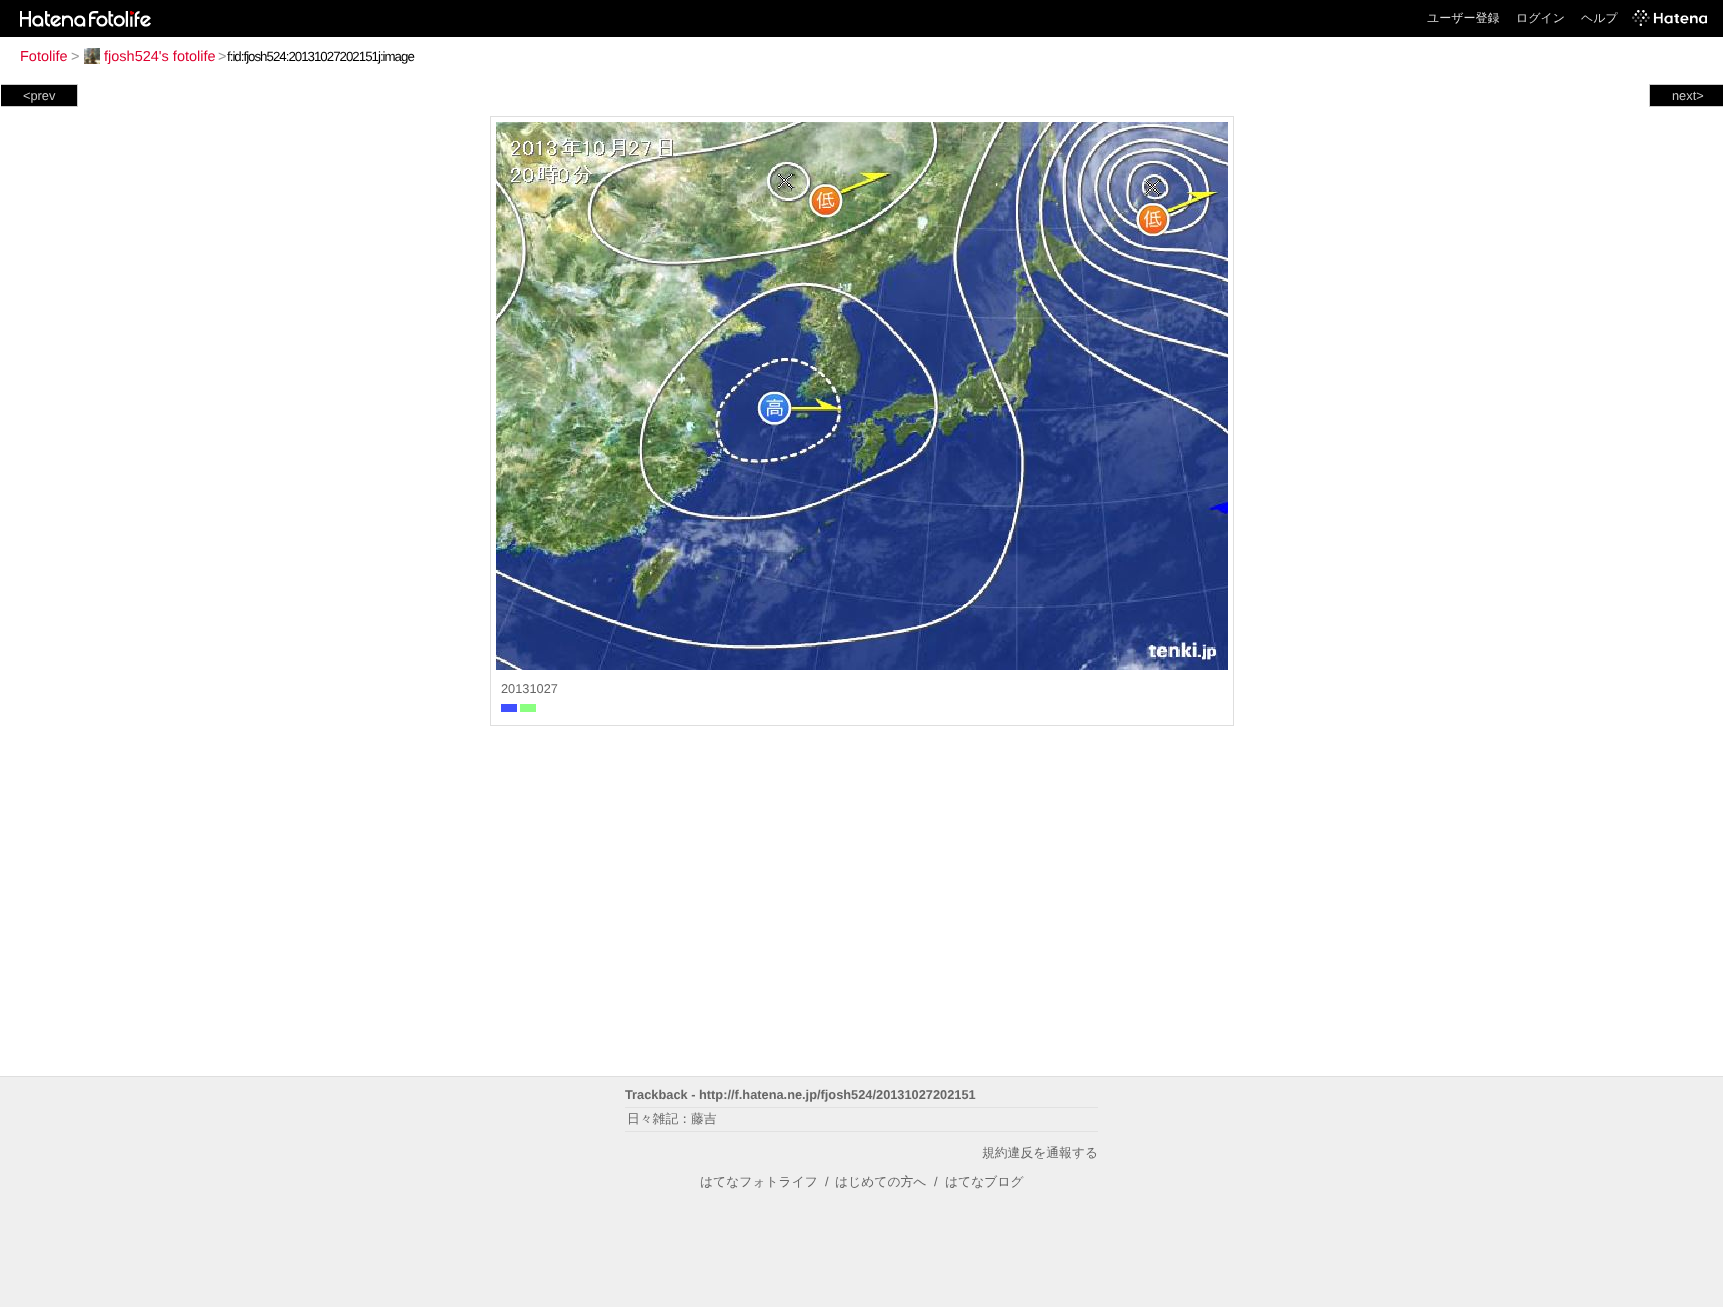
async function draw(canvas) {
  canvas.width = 1723;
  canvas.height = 1307;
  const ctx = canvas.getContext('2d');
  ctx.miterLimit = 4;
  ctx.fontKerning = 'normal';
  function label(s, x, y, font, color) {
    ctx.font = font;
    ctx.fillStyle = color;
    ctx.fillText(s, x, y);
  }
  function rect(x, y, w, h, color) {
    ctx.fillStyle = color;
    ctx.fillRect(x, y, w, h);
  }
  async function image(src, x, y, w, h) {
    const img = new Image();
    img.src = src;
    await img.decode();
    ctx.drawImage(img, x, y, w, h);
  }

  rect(0, 0, 1723, 1307, '#efefef');
  rect(0, 0, 1723, 37, '#000');
  await image('assets/img1.png', 20, 11, 66, 16);
  await image('assets/img2.png', 89, 11, 62, 16);
  label('ユーザー登録', 1427, 22, '500 12px WenQuanYi Zen Hei', '#ddd');
  label('ログイン', 1516, 22, '500 12px WenQuanYi Zen Hei', '#ddd');
  label('ヘルプ', 1581, 22, '500 12px WenQuanYi Zen Hei', '#ddd');
  await image('assets/img3.png', 1632, 10, 75, 16);
  rect(0, 37, 1723, 1039, '#fff');
  label('Fotolife', 20, 61, '14.5px Liberation Sans', '#de002f');
  label('>', 71, 61, '14.5px Liberation Sans', '#999');
  await image('assets/img4.png', 84, 48, 16, 16);
  label('fjosh524\'s fotolife', 104, 61, '14.5px Liberation Sans', '#de002f');
  label('>', 218, 61, '14.5px Liberation Sans', '#999');
  ctx.letterSpacing = '-1px';
  label('f:id:fjosh524:20131027202151j:image', 227, 61, '13.3px Liberation Sans', '#000');
  rect(0, 1076, 1723, 1, '#dedede');
  rect(1, 85, 76, 21, '#000');
  rect(1, 84, 77, 1, '#ccc');
  rect(77, 84, 1, 23, '#ccc');
  rect(1, 106, 77, 1, '#ccc');
  ctx.letterSpacing = '0px';
  label('<prev', 23, 100, '12.8px Liberation Sans', '#ccc');
  rect(1650, 85, 73, 21, '#000');
  rect(1649, 84, 74, 1, '#ccc');
  rect(1649, 106, 74, 1, '#ccc');
  rect(1649, 84, 1, 23, '#ccc');
  label('next>', 1672, 100, '12.8px Liberation Sans', '#ccc');
  ctx.strokeStyle = '#dedede';
  ctx.strokeRect(490.5, 116.5, 743, 609);
  await image('assets/img5.png', 496, 122, 732, 548);
  label('20131027', 501, 693, '12.8px Liberation Sans', '#666');
  rect(501, 704, 16, 8, '#4050ff');
  rect(520, 704, 16, 8, '#8aff80');
  label('Trackback - http://f.hatena.ne.jp/fjosh524/20131027202151', 625, 1099, 'bold 12.8px Liberation Sans', '#666');
  rect(625, 1107, 473, 1, '#e1e1e1');
  rect(625, 1131, 473, 1, '#e1e1e1');
  label('日々雑記：藤吉', 627, 1123, '500 12.8px WenQuanYi Zen Hei', '#666');
  label('規約違反を通報する', 982, 1157, '500 12.8px WenQuanYi Zen Hei', '#666');
  label('はてなフォトライフ', 700, 1186, '500 12.8px WenQuanYi Zen Hei', '#666');
  label('/', 825, 1186, '12.8px Liberation Sans', '#666');
  label('はじめての方へ', 835, 1186, '500 12.8px WenQuanYi Zen Hei', '#666');
  label('/', 934, 1186, '12.8px Liberation Sans', '#666');
  label('はてなブログ', 945, 1186, '500 12.8px WenQuanYi Zen Hei', '#666');
}

draw(document.querySelector('canvas'));
